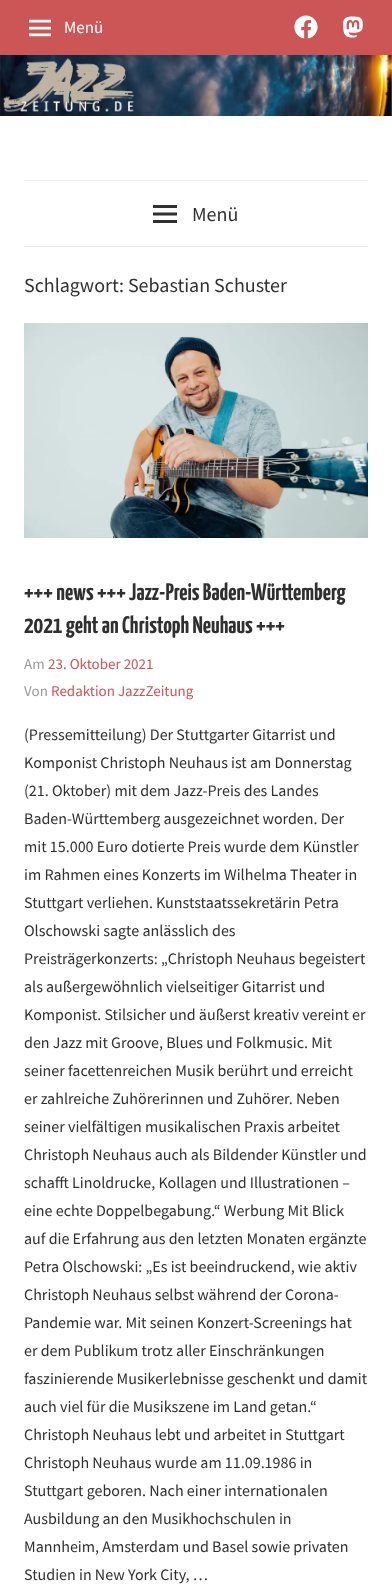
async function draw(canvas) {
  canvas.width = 392;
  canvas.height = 1596;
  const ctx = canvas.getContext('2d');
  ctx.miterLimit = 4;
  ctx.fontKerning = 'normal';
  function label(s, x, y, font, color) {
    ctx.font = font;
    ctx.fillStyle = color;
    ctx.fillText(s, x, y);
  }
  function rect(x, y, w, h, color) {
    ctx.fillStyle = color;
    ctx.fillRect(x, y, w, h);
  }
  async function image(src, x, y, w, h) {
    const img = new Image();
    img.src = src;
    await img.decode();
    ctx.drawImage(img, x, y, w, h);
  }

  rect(0, 0, 392, 1596, '#fff');
  rect(0, 0, 392, 55, '#c55');
  await image('assets/img1.png', 29, 19, 22, 18);
  label('Menü', 64, 33, '17px Source Sans Pro', '#fff');
  await image('assets/img2.png', 294, 15, 24, 24);
  await image('assets/img3.png', 343, 16, 20, 22);
  await image('assets/img4.png', 0, 55, 392, 61);
  rect(24, 246, 344, 1, '#ececec');
  rect(24, 180, 344, 1, '#ececec');
  await image('assets/img5.png', 153, 205, 24, 18);
  label('Menü', 192, 221, '20px Source Sans Pro', '#303030');
  label('Schlagwort: Sebastian Schuster', 24, 292, '20px Source Sans Pro', '#303030');
  await image('assets/img6.png', 24, 323, 344, 215);
  label('+++ news +++ Jazz-Preis Baden-Württemberg', 24, 600, 'bold 24px Yanone Kaffeesatz', '#303030');
  label('2021 geht an Christoph Neuhaus +++', 24, 633, 'bold 24px Yanone Kaffeesatz', '#303030');
  label('Am', 24, 669, '15px Source Sans Pro', '#999');
  label('23. Oktober 2021', 48, 669, '15px Source Sans Pro', '#c55');
  label('Von', 24, 696, '15px Source Sans Pro', '#999');
  label('Redaktion JazzZeitung', 51, 696, '15px Source Sans Pro', '#c55');
  label('(Pressemitteilung) Der Stuttgarter Gitarrist und', 24, 740, '16px Source Sans Pro', '#303030');
  label('Komponist Christoph Neuhaus ist am Donnerstag', 24, 768, '16px Source Sans Pro', '#303030');
  label('(21. Oktober) mit dem Jazz-Preis des Landes', 24, 796, '16px Source Sans Pro', '#303030');
  label('Baden-Württemberg ausgezeichnet worden. Der', 24, 824, '16px Source Sans Pro', '#303030');
  label('mit 15.000 Euro dotierte Preis wurde dem Künstler', 24, 852, '16px Source Sans Pro', '#303030');
  label('im Rahmen eines Konzerts im Wilhelma Theater in', 24, 880, '16px Source Sans Pro', '#303030');
  label('Stuttgart verliehen. Kunststaatssekretärin Petra', 24, 908, '16px Source Sans Pro', '#303030');
  label('Olschowski sagte anlässlich des', 24, 936, '16px Source Sans Pro', '#303030');
  label('Preisträgerkonzerts: „Christoph Neuhaus begeistert', 24, 964, '16px Source Sans Pro', '#303030');
  label('als außergewöhnlich vielseitiger Gitarrist und', 24, 992, '16px Source Sans Pro', '#303030');
  label('Komponist. Stilsicher und äußerst kreativ vereint er', 24, 1020, '16px Source Sans Pro', '#303030');
  label('den Jazz mit Groove, Blues und Folkmusic. Mit', 24, 1048, '16px Source Sans Pro', '#303030');
  label('seiner facettenreichen Musik berührt und erreicht', 24, 1076, '16px Source Sans Pro', '#303030');
  label('er zahlreiche Zuhörerinnen und Zuhörer. Neben', 24, 1104, '16px Source Sans Pro', '#303030');
  label('seiner vielfältigen musikalischen Praxis arbeitet', 24, 1132, '16px Source Sans Pro', '#303030');
  label('Christoph Neuhaus auch als Bildender Künstler und', 24, 1160, '16px Source Sans Pro', '#303030');
  label('schafft Linoldrucke, Kollagen und Illustrationen –', 24, 1188, '16px Source Sans Pro', '#303030');
  label('eine echte Doppelbegabung.“ Werbung Mit Blick', 24, 1216, '16px Source Sans Pro', '#303030');
  label('auf die Erfahrung aus den letzten Monaten ergänzte', 24, 1244, '16px Source Sans Pro', '#303030');
  label('Petra Olschowski: „Es ist beeindruckend, wie aktiv', 24, 1272, '16px Source Sans Pro', '#303030');
  label('Christoph Neuhaus selbst während der Corona-', 24, 1300, '16px Source Sans Pro', '#303030');
  label('Pandemie war. Mit seinen Konzert-Screenings hat', 24, 1328, '16px Source Sans Pro', '#303030');
  label('er dem Publikum trotz aller Einschränkungen', 24, 1356, '16px Source Sans Pro', '#303030');
  label('faszinierende Musikerlebnisse geschenkt und damit', 24, 1384, '16px Source Sans Pro', '#303030');
  label('auch viel für die Musikszene im Land getan.“', 24, 1412, '16px Source Sans Pro', '#303030');
  label('Christoph Neuhaus lebt und arbeitet in Stuttgart', 24, 1440, '16px Source Sans Pro', '#303030');
  label('Christoph Neuhaus wurde am 11.09.1986 in', 24, 1468, '16px Source Sans Pro', '#303030');
  label('Stuttgart geboren. Nach einer internationalen', 24, 1496, '16px Source Sans Pro', '#303030');
  label('Ausbildung an den Musikhochschulen in', 24, 1524, '16px Source Sans Pro', '#303030');
  label('Mannheim, Amsterdam und Basel sowie privaten', 24, 1552, '16px Source Sans Pro', '#303030');
  label('Studien in New York City, …', 24, 1580, '16px Source Sans Pro', '#303030');
}

draw(document.querySelector('canvas'));
